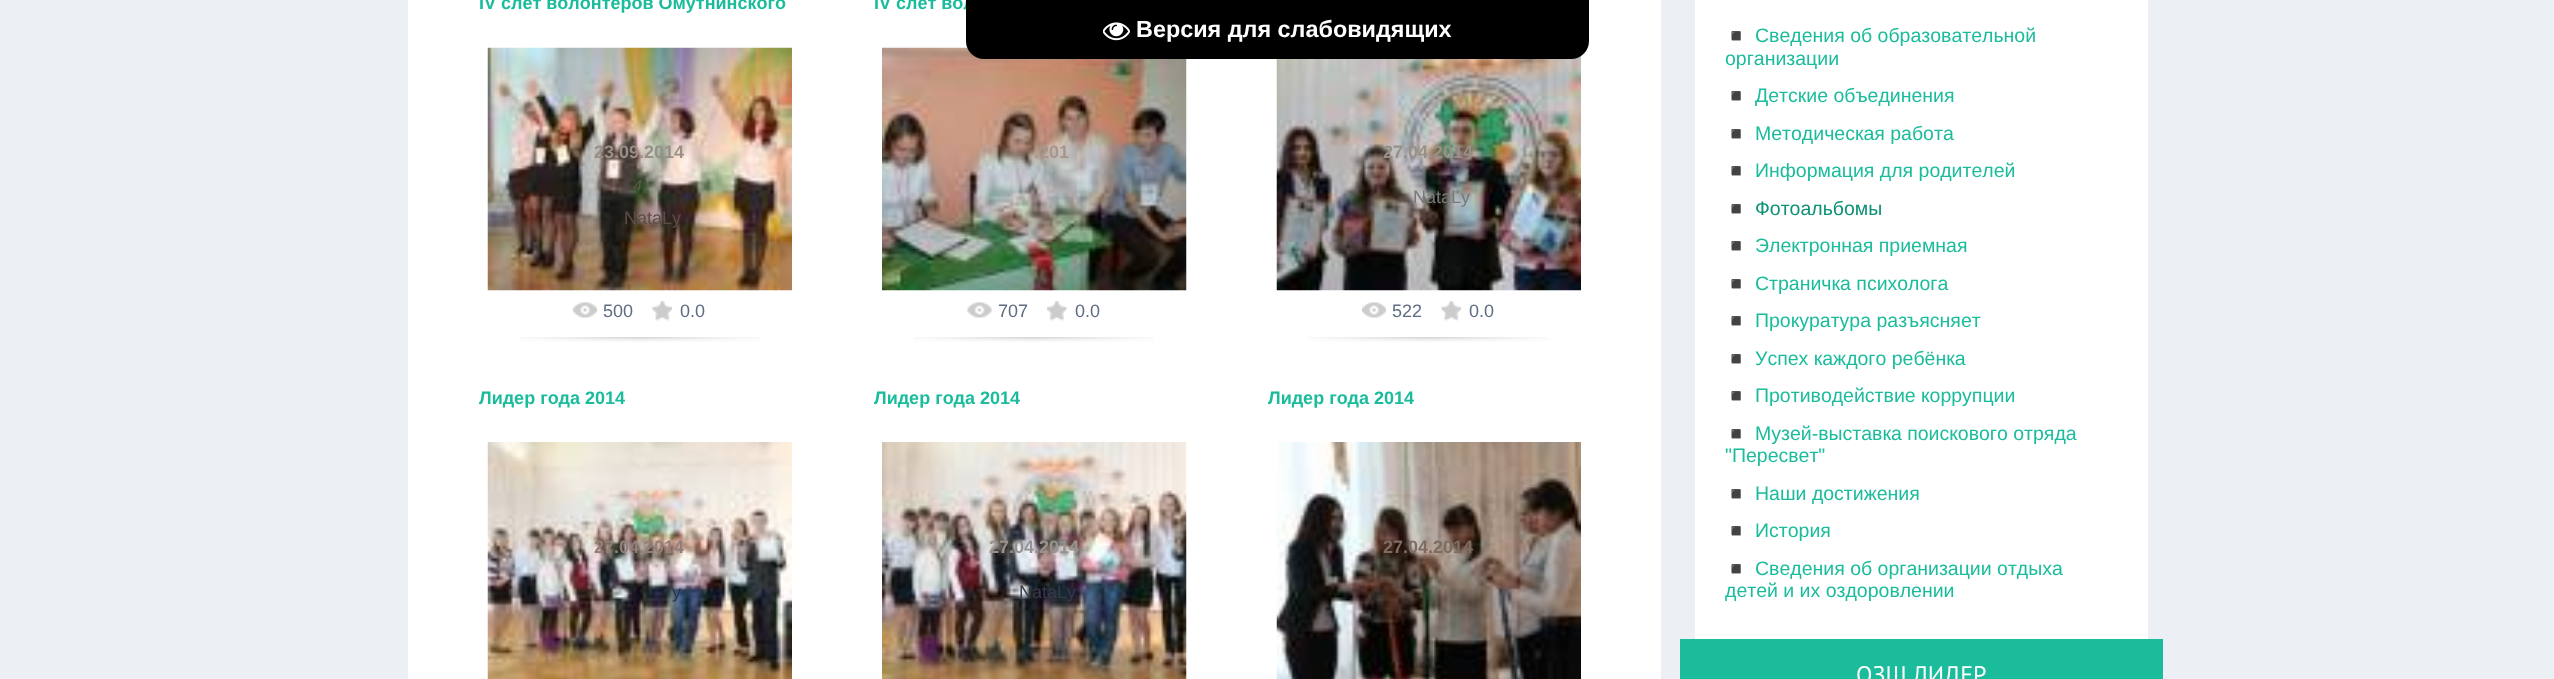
async function draw(canvas) {
  canvas.width = 2554;
  canvas.height = 679;
  const ctx = canvas.getContext('2d');
  ctx.miterLimit = 4;
  ctx.fontKerning = 'none';
  function label(s, x, y, font, color) {
    ctx.font = font;
    ctx.fillStyle = color;
    ctx.fillText(s, x, y);
  }
  function rect(x, y, w, h, color) {
    ctx.fillStyle = color;
    ctx.fillRect(x, y, w, h);
  }
  async function image(src, x, y, w, h) {
    const img = new Image();
    img.src = src;
    await img.decode();
    ctx.drawImage(img, x, y, w, h);
  }

  rect(0, 0, 2554, 679, '#eceff3');
  rect(408, 0, 1253, 679, '#fff');
  label('IV слёт волонтёров Омутнинского', 479, 9, 'bold 18px Liberation Sans', '#1abc9c');
  await image('assets/img1.png', 487, 47, 305, 244);
  label('23.09.2014', 594, 158, 'bold 18px Liberation Sans', '#989087');
  label('4', 633, 191, 'italic 16px Liberation Sans', '#5d594d');
  label('NataLy', 624, 224, '18px Liberation Sans', '#5e4d47');
  await image('assets/img2.png', 573, 302, 24, 16);
  label('500', 603, 317, '18px Liberation Sans', '#5e6d81');
  await image('assets/img3.png', 652, 301, 20, 20);
  label('0.0', 680, 317, '18px Liberation Sans', '#5e6d81');
  await image('assets/img4.png', 520, 337, 240, 5);
  label('IV слёт вол', 874, 9, 'bold 18px Liberation Sans', '#1abc9c');
  await image('assets/img5.png', 882, 47, 305, 244);
  label('.201', 1034, 158, 'bold 18px Liberation Sans', '#a7968c');
  await image('assets/img6.png', 967, 302, 25, 16);
  label('707', 998, 317, '18px Liberation Sans', '#5e6d81');
  await image('assets/img7.png', 1047, 301, 20, 20);
  label('0.0', 1075, 317, '18px Liberation Sans', '#5e6d81');
  await image('assets/img8.png', 914, 337, 240, 5);
  await image('assets/img9.png', 1276, 56, 305, 235);
  label('27.04.2014', 1383, 158, 'bold 18px Liberation Sans', '#989087');
  label('NataLy', 1413, 203, '18px Liberation Sans', '#777978');
  await image('assets/img2.png', 1362, 302, 24, 16);
  label('522', 1392, 317, '18px Liberation Sans', '#5e6d81');
  await image('assets/img3.png', 1441, 301, 20, 20);
  label('0.0', 1469, 317, '18px Liberation Sans', '#5e6d81');
  await image('assets/img10.png', 1309, 337, 240, 5);
  label('Лидер года 2014', 479, 404, 'bold 18px Liberation Sans', '#1abc9c');
  await image('assets/img11.png', 487, 442, 305, 237);
  label('27.04.2014', 594, 553, 'bold 18px Liberation Sans', '#937f77');
  label('y', 672, 598, '18px Liberation Sans', '#303643');
  label('Лидер года 2014', 874, 404, 'bold 18px Liberation Sans', '#1abc9c');
  await image('assets/img12.png', 882, 442, 305, 237);
  label('27.04.2014', 989, 553, 'bold 18px Liberation Sans', '#979190');
  label('NataLy', 1019, 598, '18px Liberation Sans', '#363a46');
  label('Лидер года 2014', 1268, 404, 'bold 18px Liberation Sans', '#1abc9c');
  await image('assets/img13.png', 1276, 442, 305, 237);
  label('27.04.2014', 1383, 553, 'bold 18px Liberation Sans', '#7e6c63');
  rect(1695, 0, 453, 639, '#fff');
  label('◾', 1725, 42, '18px Noto Color Emoji', '#dadddf');
  label('Сведения об образовательной', 1755, 42, '19.5px Liberation Sans', '#1abc9c');
  label('организации', 1725, 65, '19.5px Liberation Sans', '#1abc9c');
  label('◾', 1725, 102, '18px Noto Color Emoji', '#dadddf');
  label('Детские объединения', 1755, 102, '19.5px Liberation Sans', '#1abc9c');
  label('◾', 1725, 140, '18px Noto Color Emoji', '#dadddf');
  label('Методическая работа', 1755, 140, '19.5px Liberation Sans', '#1abc9c');
  label('◾', 1725, 177, '18px Noto Color Emoji', '#dadddf');
  label('Информация для родителей', 1755, 177, '19.5px Liberation Sans', '#1abc9c');
  label('◾', 1725, 215, '18px Noto Color Emoji', '#939fae');
  label('Фотоальбомы', 1755, 215, '19.5px Liberation Sans', '#0c9076');
  label('◾', 1725, 252, '18px Noto Color Emoji', '#dadddf');
  label('Электронная приемная', 1755, 252, '19.5px Liberation Sans', '#1abc9c');
  label('◾', 1725, 290, '18px Noto Color Emoji', '#dadddf');
  label('Страничка психолога', 1755, 290, '19.5px Liberation Sans', '#1abc9c');
  label('◾', 1725, 327, '18px Noto Color Emoji', '#dadddf');
  label('Прокуратура разъясняет', 1755, 327, '19.5px Liberation Sans', '#1abc9c');
  label('◾', 1725, 365, '18px Noto Color Emoji', '#dadddf');
  label('Успех каждого ребёнка', 1755, 365, '19.5px Liberation Sans', '#1abc9c');
  label('◾', 1725, 402, '18px Noto Color Emoji', '#dadddf');
  label('Противодействие коррупции', 1755, 402, '19.5px Liberation Sans', '#1abc9c');
  label('◾', 1725, 440, '18px Noto Color Emoji', '#dadddf');
  label('Музей-выставка поискового отряда', 1755, 440, '19.5px Liberation Sans', '#1abc9c');
  label('"Пересвет"', 1725, 462, '19.5px Liberation Sans', '#1abc9c');
  label('◾', 1725, 500, '18px Noto Color Emoji', '#dadddf');
  label('Наши достижения', 1755, 500, '19.5px Liberation Sans', '#1abc9c');
  label('◾', 1725, 537, '18px Noto Color Emoji', '#dadddf');
  label('История', 1755, 537, '19.5px Liberation Sans', '#1abc9c');
  label('◾', 1725, 575, '18px Noto Color Emoji', '#dadddf');
  label('Сведения об организации отдыха', 1755, 575, '19.5px Liberation Sans', '#1abc9c');
  label('детей и их оздоровлении', 1725, 597, '19.5px Liberation Sans', '#1abc9c');
  rect(1680, 639, 483, 40, '#1abc9c');
  label('ОЗШ ЛИДЕР', 1856, 683, '24px PT Sans', '#fff');
  ctx.fillStyle = '#000';
  ctx.beginPath();
  ctx.roundRect(966, 0, 623, 59, [0, 0, 18, 18]);
  ctx.fill();
  await image('assets/img14.png', 1103, 22, 27, 19);
  label('Версия для слабовидящих', 1136, 37, 'bold 23.4px Liberation Sans', '#fff');
}

draw(document.querySelector('canvas'));
